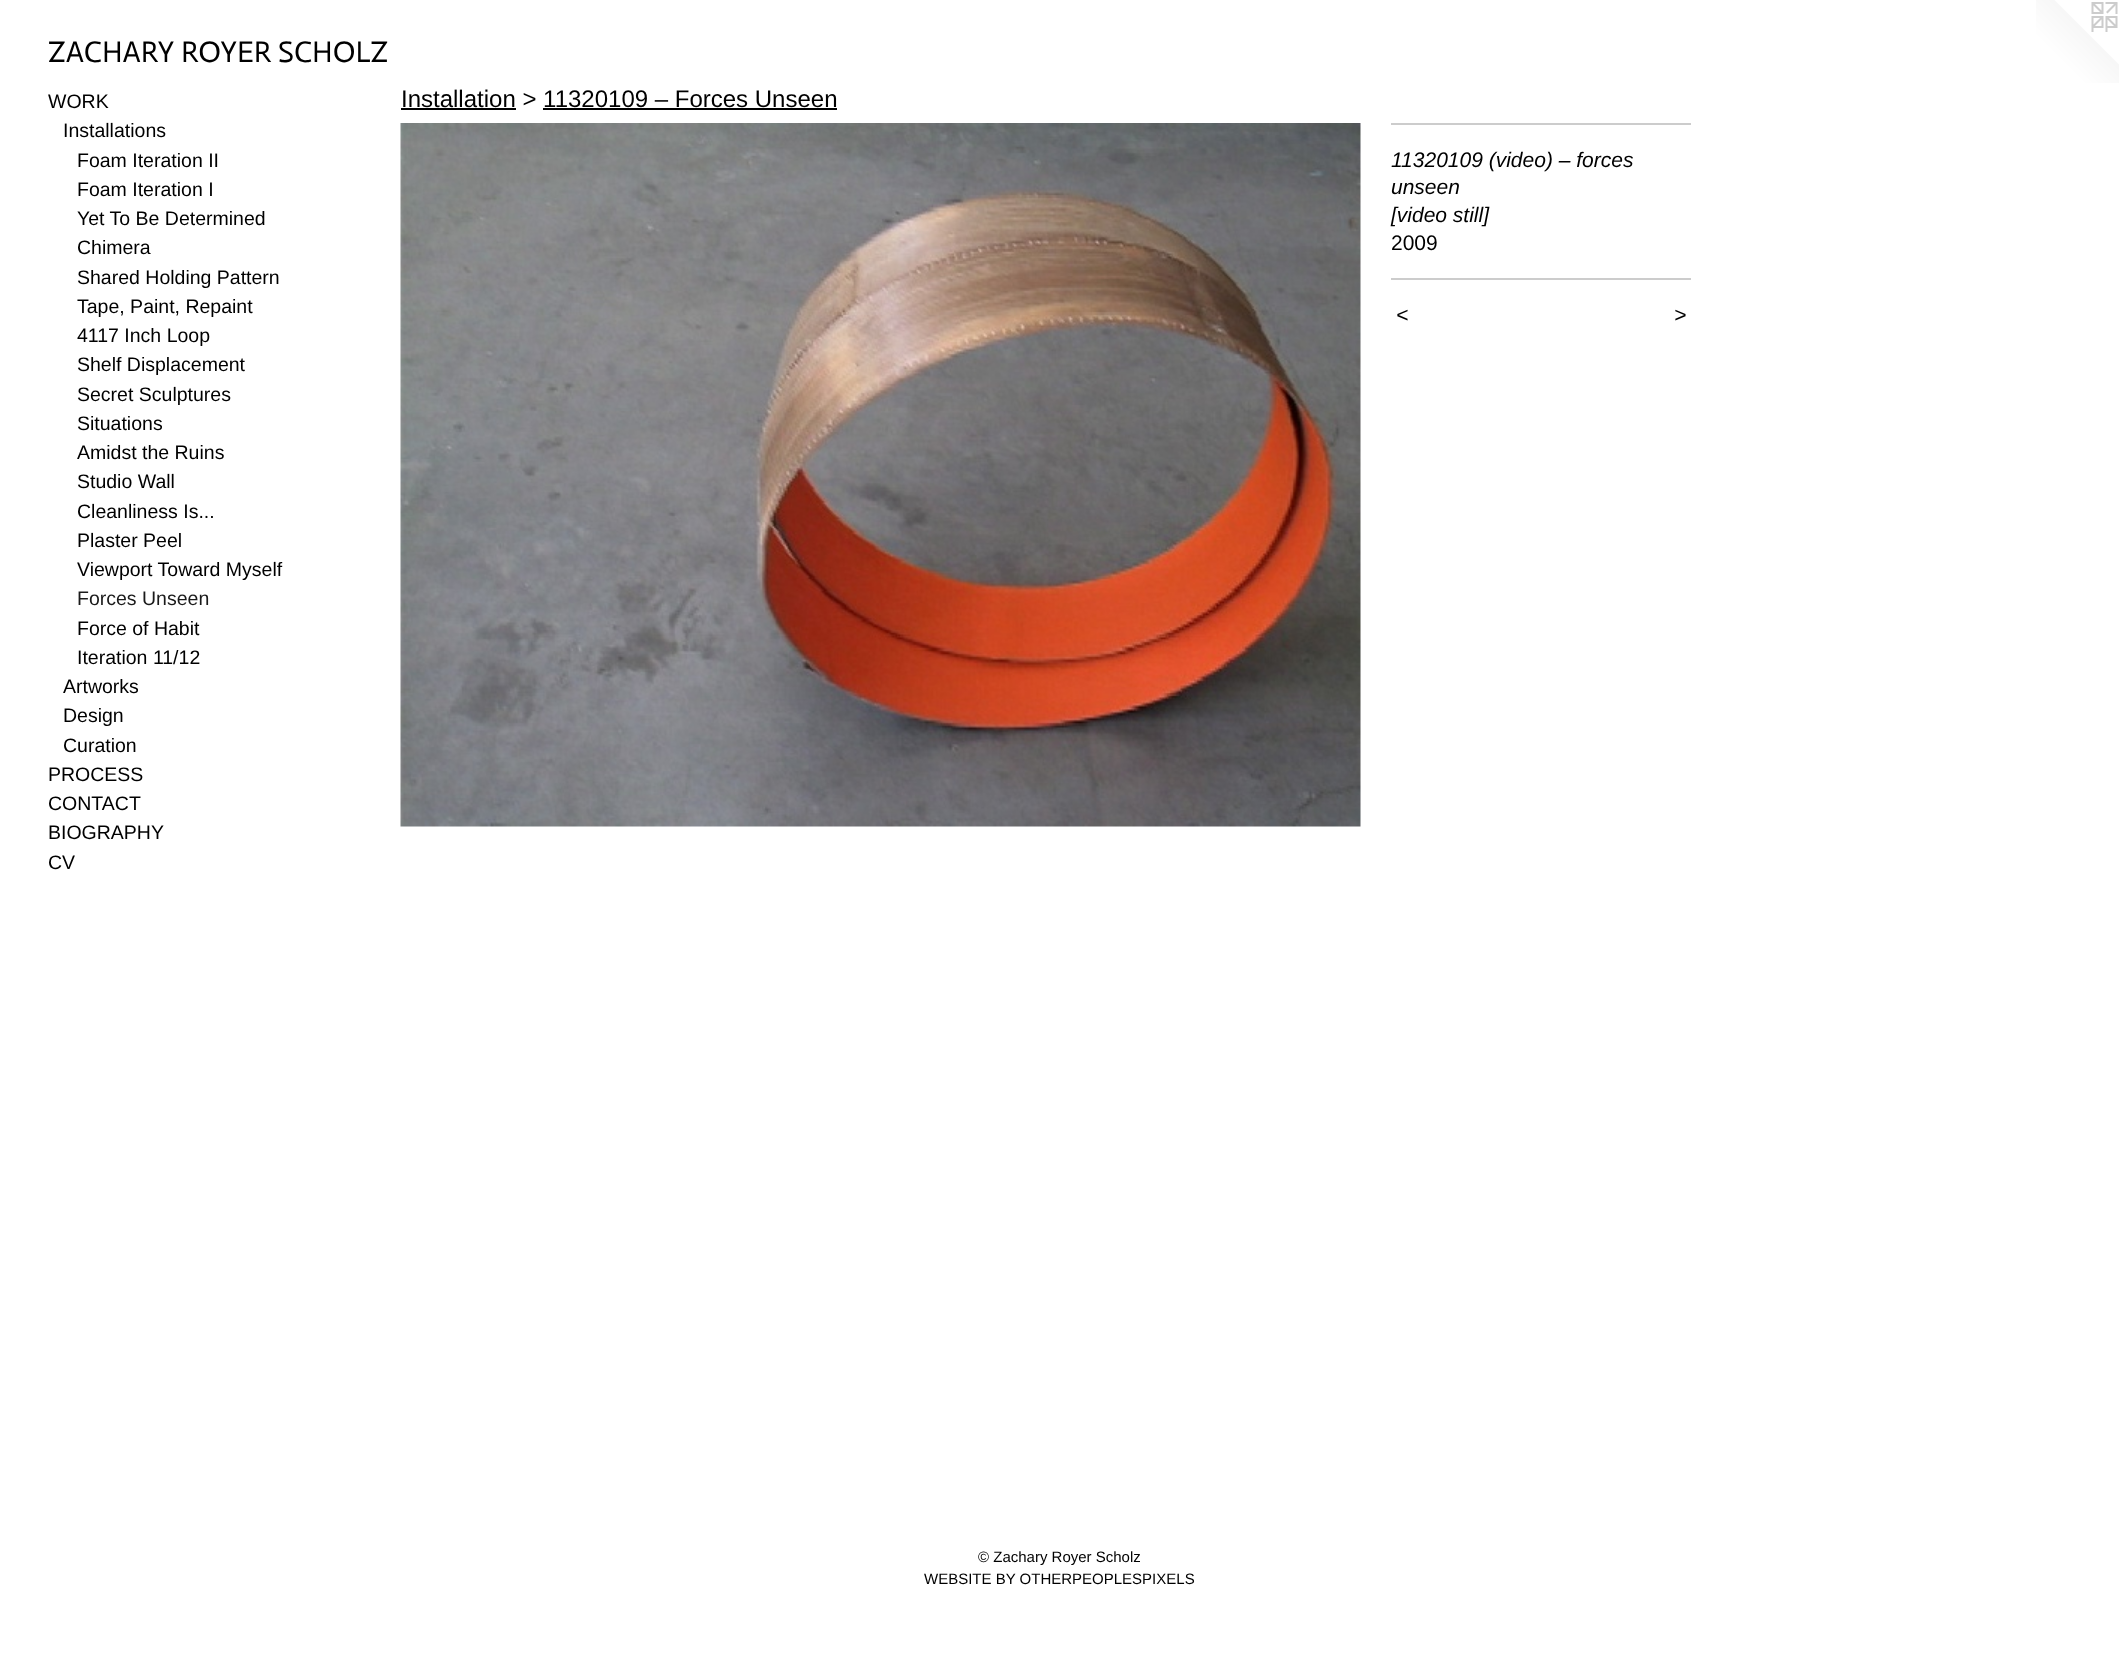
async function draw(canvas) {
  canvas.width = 2119;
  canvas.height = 1665;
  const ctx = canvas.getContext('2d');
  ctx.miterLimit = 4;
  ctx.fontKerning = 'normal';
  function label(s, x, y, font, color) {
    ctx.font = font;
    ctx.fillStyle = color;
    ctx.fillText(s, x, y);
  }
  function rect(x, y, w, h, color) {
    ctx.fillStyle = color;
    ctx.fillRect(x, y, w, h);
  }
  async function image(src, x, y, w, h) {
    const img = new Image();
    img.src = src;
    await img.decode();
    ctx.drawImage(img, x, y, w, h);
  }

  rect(0, 0, 2119, 1665, '#fff');
  label('ZACHARY ROYER SCHOLZ', 48, 62, '30px Actor', '#000');
  await image('assets/img1.png', 2036, 0, 83, 83);
  label('WORK', 48, 108, '19.5px Liberation Sans', '#000');
  label('Installations', 63, 137, '19.5px Liberation Sans', '#000');
  label('Foam Iteration II', 77, 167, '19.5px Liberation Sans', '#000');
  label('Foam Iteration I', 77, 196, '19.5px Liberation Sans', '#000');
  label('Yet To Be Determined', 77, 225, '19.5px Liberation Sans', '#000');
  label('Chimera', 77, 254, '19.5px Liberation Sans', '#000');
  label('Shared Holding Pattern', 77, 284, '19.5px Liberation Sans', '#000');
  label('Tape, Paint, Repaint', 77, 313, '19.5px Liberation Sans', '#000');
  label('4117 Inch Loop', 77, 342, '19.5px Liberation Sans', '#000');
  label('Shelf Displacement', 77, 371, '19.5px Liberation Sans', '#000');
  label('Secret Sculptures', 77, 401, '19.5px Liberation Sans', '#000');
  label('Situations', 77, 430, '19.5px Liberation Sans', '#000');
  label('Amidst the Ruins', 77, 459, '19.5px Liberation Sans', '#000');
  label('Studio Wall', 77, 488, '19.5px Liberation Sans', '#000');
  label('Cleanliness Is...', 77, 518, '19.5px Liberation Sans', '#000');
  label('Plaster Peel', 77, 547, '19.5px Liberation Sans', '#000');
  label('Viewport Toward Myself', 77, 576, '19.5px Liberation Sans', '#000');
  label('Forces Unseen', 77, 605, '19.5px Liberation Sans', '#1a1a1a');
  label('Force of Habit', 77, 635, '19.5px Liberation Sans', '#000');
  label('Iteration 11/12', 77, 664, '19.5px Liberation Sans', '#000');
  label('Artworks', 63, 693, '19.5px Liberation Sans', '#000');
  label('Design', 63, 722, '19.5px Liberation Sans', '#000');
  label('Curation', 63, 752, '19.5px Liberation Sans', '#000');
  label('PROCESS', 48, 781, '19.5px Liberation Sans', '#000');
  label('CONTACT', 48, 810, '19.5px Liberation Sans', '#000');
  label('BIOGRAPHY', 48, 839, '19.5px Liberation Sans', '#000');
  label('CV', 48, 869, '19.5px Liberation Sans', '#000');
  label('Installation > 11320109 – Forces Unseen', 401, 107, '24px Liberation Sans', '#000');
  rect(401, 108, 115, 2, '#000');
  rect(543, 108, 294, 2, '#000');
  await image('assets/img2.png', 400, 123, 961, 704);
  rect(1391, 123, 300, 2, '#ccc');
  label('11320109 (video) – forces', 1391, 167, 'italic 21px Liberation Sans', '#000');
  label('unseen', 1391, 194, 'italic 21px Liberation Sans', '#000');
  label('[video still]', 1391, 222, 'italic 21px Liberation Sans', '#000');
  label('2009', 1391, 250, '21px Liberation Sans', '#000');
  rect(1391, 278, 300, 2, '#ccc');
  ctx.letterSpacing = '2px';
  label('<', 1396, 322, 'italic 21px Liberation Sans', '#000');
  label('>', 1674, 322, 'italic 21px Liberation Sans', '#000');
  ctx.letterSpacing = '0px';
  label('© Zachary Royer Scholz', 978, 1562, '15px Liberation Sans', '#000');
  label('WEBSITE BY OTHERPEOPLESPIXELS', 924, 1584, '15px Liberation Sans', '#000');
}

draw(document.querySelector('canvas'));
